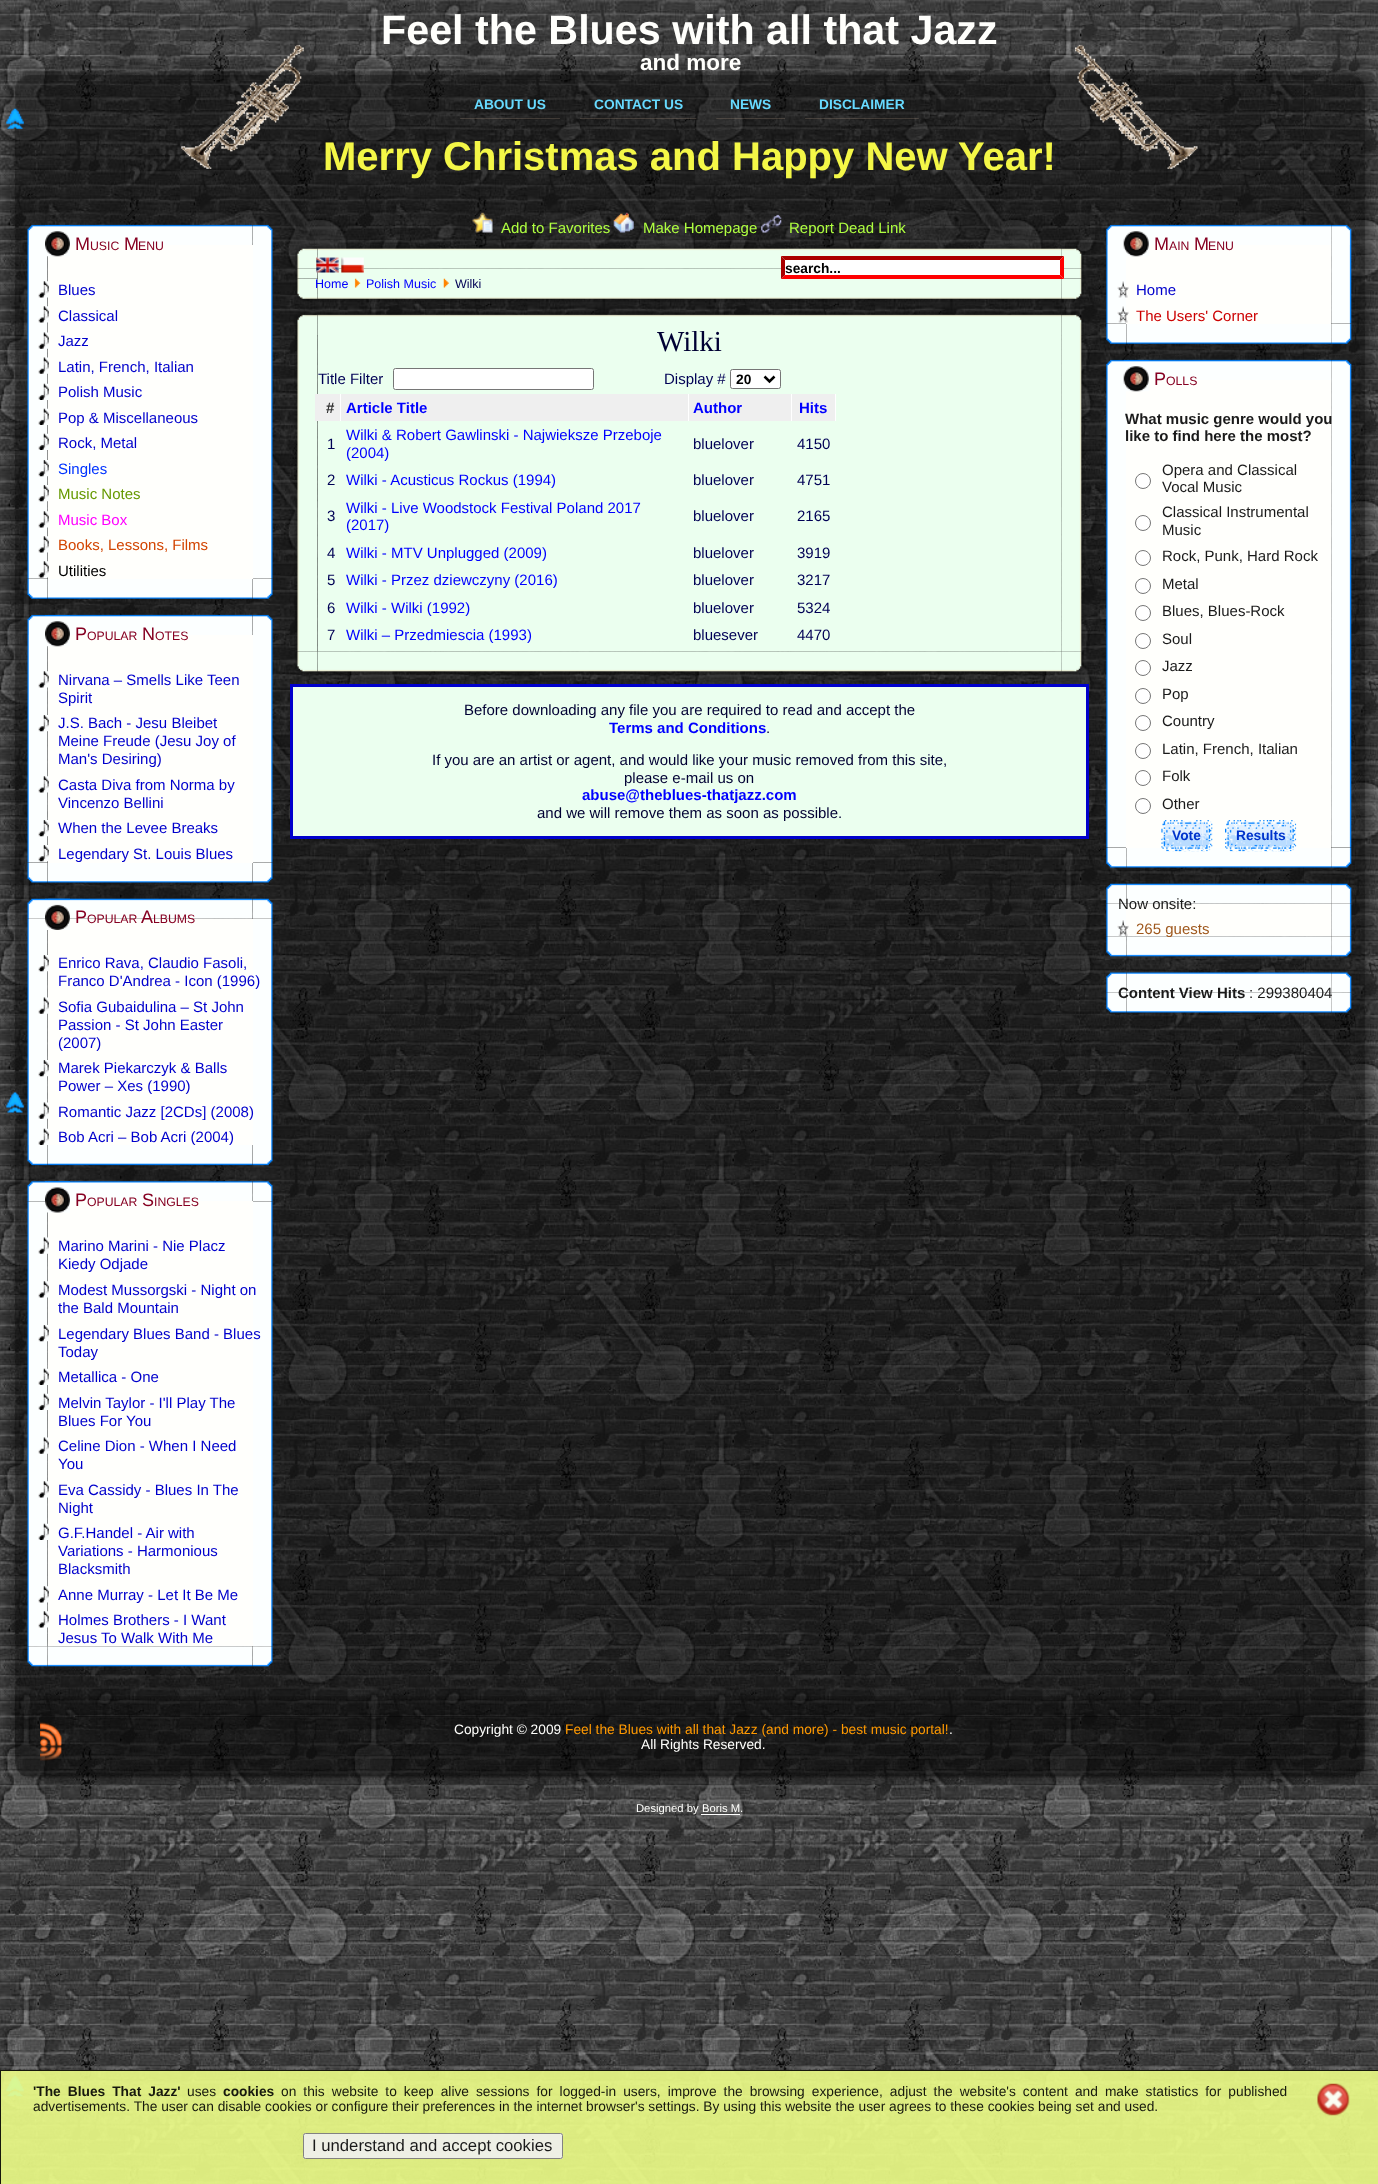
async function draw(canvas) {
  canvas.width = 1378;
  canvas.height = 2184;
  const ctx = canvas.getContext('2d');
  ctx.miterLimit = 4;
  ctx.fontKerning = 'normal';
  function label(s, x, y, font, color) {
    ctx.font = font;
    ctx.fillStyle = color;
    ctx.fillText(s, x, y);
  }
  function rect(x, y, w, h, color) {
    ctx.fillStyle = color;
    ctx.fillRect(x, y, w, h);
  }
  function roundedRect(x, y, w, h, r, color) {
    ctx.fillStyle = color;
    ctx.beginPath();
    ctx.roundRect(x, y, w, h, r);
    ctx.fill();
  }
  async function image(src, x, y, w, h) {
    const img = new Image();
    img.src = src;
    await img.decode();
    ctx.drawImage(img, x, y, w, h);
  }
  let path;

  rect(0, 0, 1378, 2184, '#fff');
  await image('assets/img1.png', 0, 281, 1378, 1903);
  await image('assets/img2.png', 0, 0, 1378, 282);
  label('Feel the Blues with all that Jazz', 381, 44, 'bold 41.25px Liberation Sans', '#fffffc');
  await image('assets/img5.png', 1303, 63, 74, 72);
  await image('assets/img4.png', 75, 62, 1229, 73);
  label('and more', 640, 70, 'bold 22.5px Liberation Sans', '#fffffc');
  await image('assets/img3.png', 2, 62, 73, 73);
  label('ABOUT US', 474, 109, 'bold 13.75px Liberation Sans', '#67daff');
  await image('assets/img6.png', 460, 118, 95, 1);
  await image('assets/img7.png', 555, 118, 5, 1);
  label('CONTACT US', 594, 109, 'bold 13.75px Liberation Sans', '#67daff');
  await image('assets/img8.png', 580, 118, 112, 1);
  await image('assets/img9.png', 691, 118, 6, 1);
  label('NEWS', 730, 109, 'bold 13.75px Liberation Sans', '#67daff');
  await image('assets/img10.png', 716, 118, 64, 1);
  await image('assets/img11.png', 780, 118, 5, 1);
  label('DISCLAIMER', 819, 109, 'bold 13.75px Liberation Sans', '#67daff');
  await image('assets/img12.png', 805, 118, 109, 1);
  await image('assets/img13.png', 913, 118, 6, 1);
  await image('assets/img144.png', 1303, 135, 75, 1581);
  await image('assets/img147.png', 1303, 1716, 75, 74);
  await image('assets/img146.png', 75, 1716, 1229, 75);
  rect(75, 135, 1229, 1582, '#00000080');
  label('Merry Christmas and Happy New Year!', 323, 170, 'bold 40px Liberation Sans', '#f4f747');
  await image('assets/img143.png', 2, 135, 73, 1581);
  await image('assets/img14.png', 27, 224, 21, 21);
  await image('assets/img16.png', 252, 224, 21, 21);
  await image('assets/img15.png', 47, 224, 206, 21);
  await image('assets/img32.png', 27, 578, 21, 21);
  await image('assets/img34.png', 252, 578, 21, 21);
  await image('assets/img33.png', 47, 578, 206, 21);
  await image('assets/img17.png', 27, 245, 21, 334);
  rect(48, 245, 205, 334, '#fffffc');
  await image('assets/img18.png', 45, 225, 25, 32);
  label('M', 75, 250, '18px Liberation Sans', '#860022');
  label('USIC', 90, 250, '12.25px Liberation Sans', '#860022');
  label('M', 124, 250, '18px Liberation Sans', '#860022');
  label('ENU', 138, 250, '12.25px Liberation Sans', '#860022');
  await image('assets/img19.png', 38, 281, 11, 17);
  label('Blues', 58, 295, '15px Liberation Sans', '#00c');
  await image('assets/img20.png', 38, 306, 11, 17);
  label('Classical', 58, 321, '15px Liberation Sans', '#00c');
  await image('assets/img21.png', 38, 332, 11, 17);
  label('Jazz', 58, 346, '15px Liberation Sans', '#00c');
  await image('assets/img22.png', 38, 357, 11, 17);
  label('Latin, French, Italian', 58, 372, '15px Liberation Sans', '#00c');
  await image('assets/img23.png', 38, 383, 11, 17);
  label('Polish Music', 58, 397, '15px Liberation Sans', '#00c');
  await image('assets/img24.png', 38, 408, 11, 17);
  label('Pop & Miscellaneous', 58, 423, '15px Liberation Sans', '#00c');
  await image('assets/img25.png', 38, 433, 11, 17);
  label('Rock, Metal', 58, 448, '15px Liberation Sans', '#00c');
  await image('assets/img26.png', 38, 460, 11, 17);
  label('Singles', 58, 474, '15px Liberation Sans', '#03f');
  await image('assets/img27.png', 38, 485, 11, 17);
  label('Music Notes', 58, 499, '15px Liberation Sans', '#690');
  await image('assets/img28.png', 38, 511, 11, 17);
  label('Music Box', 58, 525, '15px Liberation Sans', '#f0f');
  await image('assets/img29.png', 38, 536, 11, 17);
  label('Books, Lessons, Films', 58, 550, '15px Liberation Sans', '#d24400');
  await image('assets/img30.png', 38, 561, 11, 17);
  label('Utilities', 58, 576, '15px Liberation Sans', '#000');
  await image('assets/img31.png', 253, 245, 20, 334);
  await image('assets/img35.png', 27, 614, 21, 21);
  await image('assets/img37.png', 252, 614, 21, 21);
  await image('assets/img36.png', 47, 614, 206, 21);
  await image('assets/img44.png', 27, 862, 21, 21);
  await image('assets/img46.png', 252, 862, 21, 21);
  await image('assets/img45.png', 47, 862, 206, 21);
  await image('assets/img38.png', 27, 635, 21, 228);
  rect(48, 635, 205, 228, '#fffffc');
  await image('assets/img18.png', 45, 615, 25, 32);
  label('P', 75, 640, '18px Liberation Sans', '#860022');
  label('OPULAR', 87, 640, '12.25px Liberation Sans', '#860022');
  label('N', 142, 640, '18px Liberation Sans', '#860022');
  label('OTES', 155, 640, '12.25px Liberation Sans', '#860022');
  await image('assets/img39.png', 38, 671, 11, 17);
  label('Nirvana – Smells Like Teen', 58, 685, '15px Liberation Sans', '#00c');
  label('Spirit', 58, 703, '15px Liberation Sans', '#00c');
  await image('assets/img40.png', 38, 715, 11, 17);
  label('J.S. Bach - Jesu Bleibet', 58, 728, '15px Liberation Sans', '#00c');
  label('Meine Freude (Jesu Joy of', 58, 746, '15px Liberation Sans', '#00c');
  label('Man\'s Desiring)', 58, 764, '15px Liberation Sans', '#00c');
  await image('assets/img41.png', 38, 776, 11, 17);
  label('Casta Diva from Norma by', 58, 790, '15px Liberation Sans', '#00c');
  label('Vincenzo Bellini', 58, 808, '15px Liberation Sans', '#00c');
  await image('assets/img42.png', 38, 820, 11, 17);
  label('When the Levee Breaks', 58, 833, '15px Liberation Sans', '#00c');
  await image('assets/img42.png', 38, 845, 11, 17);
  label('Legendary St. Louis Blues', 58, 859, '15px Liberation Sans', '#00c');
  await image('assets/img43.png', 253, 635, 20, 228);
  await image('assets/img47.png', 27, 898, 21, 21);
  await image('assets/img49.png', 252, 898, 21, 21);
  await image('assets/img48.png', 47, 898, 206, 21);
  await image('assets/img50.png', 27, 918, 21, 227);
  await image('assets/img56.png', 252, 918, 21, 227);
  rect(48, 919, 205, 226, '#fffffc');
  await image('assets/img51.png', 45, 898, 25, 32);
  label('P', 75, 923, '18px Liberation Sans', '#860022');
  label('OPULAR', 87, 923, '12.25px Liberation Sans', '#860022');
  label('A', 141, 923, '18px Liberation Sans', '#860022');
  label('LBUMS', 153, 923, '12.25px Liberation Sans', '#860022');
  await image('assets/img52.png', 38, 955, 11, 17);
  label('Enrico Rava, Claudio Fasoli,', 58, 968, '15px Liberation Sans', '#00c');
  label('Franco D\'Andrea - Icon (1996)', 58, 986, '15px Liberation Sans', '#00c');
  await image('assets/img53.png', 38, 997, 11, 17);
  label('Sofia Gubaidulina – St John', 58, 1012, '15px Liberation Sans', '#00c');
  label('Passion - St John Easter', 58, 1030, '15px Liberation Sans', '#00c');
  label('(2007)', 58, 1048, '15px Liberation Sans', '#00c');
  await image('assets/img26.png', 38, 1060, 11, 17);
  label('Marek Piekarczyk & Balls', 58, 1073, '15px Liberation Sans', '#00c');
  label('Power – Xes (1990)', 58, 1091, '15px Liberation Sans', '#00c');
  await image('assets/img54.png', 38, 1102, 11, 17);
  label('Romantic Jazz [2CDs] (2008)', 58, 1117, '15px Liberation Sans', '#00c');
  await image('assets/img55.png', 38, 1128, 11, 17);
  await image('assets/img57.png', 27, 1145, 21, 21);
  await image('assets/img59.png', 252, 1145, 21, 21);
  await image('assets/img58.png', 47, 1145, 206, 21);
  label('Bob Acri – Bob Acri (2004)', 58, 1142, '15px Liberation Sans', '#00c');
  await image('assets/img60.png', 27, 1181, 21, 21);
  await image('assets/img62.png', 252, 1181, 21, 21);
  await image('assets/img61.png', 47, 1181, 206, 20);
  await image('assets/img72.png', 27, 1646, 21, 21);
  await image('assets/img74.png', 252, 1646, 21, 21);
  await image('assets/img73.png', 47, 1646, 206, 21);
  await image('assets/img63.png', 27, 1201, 21, 446);
  await image('assets/img71.png', 252, 1201, 21, 446);
  rect(48, 1201, 205, 445, '#fffffc');
  await image('assets/img64.png', 45, 1181, 25, 32);
  label('P', 75, 1206, '18px Liberation Sans', '#860022');
  label('OPULAR', 87, 1206, '12.25px Liberation Sans', '#860022');
  label('S', 142, 1206, '18px Liberation Sans', '#860022');
  label('INGLES', 154, 1206, '12.25px Liberation Sans', '#860022');
  await image('assets/img65.png', 38, 1237, 11, 17);
  label('Marino Marini - Nie Placz', 58, 1251, '15px Liberation Sans', '#00c');
  label('Kiedy Odjade', 58, 1269, '15px Liberation Sans', '#00c');
  await image('assets/img29.png', 38, 1281, 11, 17);
  label('Modest Mussorgski - Night on', 58, 1295, '15px Liberation Sans', '#00c');
  label('the Bald Mountain', 58, 1313, '15px Liberation Sans', '#00c');
  await image('assets/img66.png', 38, 1325, 11, 17);
  label('Legendary Blues Band - Blues', 58, 1339, '15px Liberation Sans', '#00c');
  label('Today', 58, 1357, '15px Liberation Sans', '#00c');
  await image('assets/img67.png', 38, 1368, 11, 17);
  label('Metallica - One', 58, 1382, '15px Liberation Sans', '#00c');
  await image('assets/img55.png', 38, 1393, 11, 17);
  label('Melvin Taylor - I\'ll Play The', 58, 1408, '15px Liberation Sans', '#00c');
  label('Blues For You', 58, 1426, '15px Liberation Sans', '#00c');
  await image('assets/img68.png', 38, 1437, 11, 17);
  label('Celine Dion - When I Need', 58, 1451, '15px Liberation Sans', '#00c');
  label('You', 58, 1469, '15px Liberation Sans', '#00c');
  await image('assets/img69.png', 38, 1481, 11, 17);
  label('Eva Cassidy - Blues In The', 58, 1495, '15px Liberation Sans', '#00c');
  label('Night', 58, 1513, '15px Liberation Sans', '#00c');
  await image('assets/img23.png', 38, 1523, 11, 17);
  label('G.F.Handel - Air with', 58, 1538, '15px Liberation Sans', '#00c');
  label('Variations - Harmonious', 58, 1556, '15px Liberation Sans', '#00c');
  label('Blacksmith', 58, 1574, '15px Liberation Sans', '#00c');
  await image('assets/img30.png', 38, 1586, 11, 17);
  label('Anne Murray - Let It Be Me', 58, 1600, '15px Liberation Sans', '#00c');
  await image('assets/img70.png', 38, 1611, 11, 17);
  label('Holmes Brothers - I Want', 58, 1625, '15px Liberation Sans', '#00c');
  label('Jesus To Walk With Me', 58, 1643, '15px Liberation Sans', '#00c');
  await image('assets/img75.png', 6, 108, 18, 21);
  await image('assets/img76.png', 472, 212, 21, 21);
  label('Add to Favorites', 501, 233, '15px Liberation Sans', '#afff40');
  await image('assets/img77.png', 613, 212, 21, 21);
  label('Make Homepage', 643, 233, '15px Liberation Sans', '#afff40');
  await image('assets/img78.png', 761, 214, 21, 19);
  label('Report Dead Link', 789, 233, '15px Liberation Sans', '#afff40');
  await image('assets/img79.png', 6, 1092, 18, 21);
  await image('assets/img80.png', 6, 2076, 18, 21);
  await image('assets/img81.png', 295, 246, 23, 23);
  await image('assets/img83.png', 1061, 246, 23, 23);
  await image('assets/img82.png', 317, 245, 745, 24);
  await image('assets/img90.png', 295, 278, 23, 23);
  await image('assets/img91.png', 317, 278, 744, 24);
  await image('assets/img84.png', 295, 269, 23, 10);
  rect(318, 269, 463, 10, '#ebffef');
  await image('assets/img85.png', 316, 257, 23, 16);
  await image('assets/img86.png', 341, 257, 23, 16);
  await image('assets/img92.png', 1061, 278, 23, 24);
  rect(781, 256, 283, 23, '#fff');
  ctx.fillStyle = '#a00';
  path = new Path2D('M781 256H1064L1060 260H785Z');
  ctx.fill(path);
  ctx.fillStyle = '#f00';
  path = new Path2D('M1064 256V279L1060 275V260Z');
  ctx.fill(path);
  path = new Path2D('M1064 279H781L785 275H1060Z');
  ctx.fill(path);
  ctx.fillStyle = '#a00';
  path = new Path2D('M781 279V256L785 260V275Z');
  ctx.fill(path);
  label('search...', 785, 273, 'bold 13.75px Liberation Sans', '#000');
  label('Home', 315, 288, '12.5px Liberation Sans', '#00f');
  await image('assets/img87.png', 354, 278, 7, 10);
  label('Polish Music', 366, 288, '12.5px Liberation Sans', '#00f');
  await image('assets/img88.png', 443, 278, 6, 10);
  label('Wilki', 455, 288, '12.5px Liberation Sans', '#005');
  await image('assets/img89.png', 1064, 268, 20, 11);
  await image('assets/img93.png', 296, 312, 22, 23);
  await image('assets/img94.png', 317, 312, 744, 23);
  await image('assets/img95.png', 1061, 312, 23, 23);
  await image('assets/img96.png', 294, 335, 24, 316);
  rect(318, 335, 743, 316, '#ebffef');
  label('Wilki', 657, 351, '29px Liberation Serif', '#003');
  label('Title Filter', 318, 384, '15px Liberation Sans', '#005');
  ctx.fillStyle = '#fff';
  ctx.beginPath();
  ctx.roundRect(393.5, 368.5, 200, 21, 2);
  ctx.fill();
  ctx.strokeStyle = '#767676';
  ctx.stroke();
  label('Display #', 664, 384, '15px Liberation Sans', '#005');
  ctx.fillStyle = '#fff';
  ctx.beginPath();
  ctx.roundRect(730.5, 369.5, 50, 19, 2);
  ctx.fill();
  ctx.stroke();
  path = new Path2D('M764.5 376.5L769.5 381.5L774.5 376.5');
  ctx.strokeStyle = '#000';
  ctx.lineWidth = 2.5;
  ctx.stroke(path);
  label('20', 736, 384, 'bold 13.75px Liberation Sans', '#000');
  rect(315, 394, 25, 27, '#efefef');
  rect(340, 394, 1, 27, '#fff');
  label('#', 326, 413, 'bold 15px Liberation Sans', '#333');
  rect(341, 394, 347, 27, '#efefef');
  rect(688, 394, 1, 27, '#fff');
  label('Article Title', 346, 413, 'bold 15px Liberation Sans', '#00f');
  rect(689, 394, 146, 27, '#efefef');
  rect(791, 394, 1, 27, '#fff');
  label('Author', 693, 413, 'bold 15px Liberation Sans', '#00f');
  rect(835, 394, 1, 27, '#fff');
  label('Hits', 799, 413, 'bold 15px Liberation Sans', '#00f');
  label('1', 327, 449, '15px Liberation Sans', '#005');
  label('Wilki & Robert Gawlinski - Najwieksze Przeboje', 346, 440, '15px Liberation Sans', '#00f');
  label('(2004)', 346, 458, '15px Liberation Sans', '#00f');
  label('bluelover', 693, 449, '15px Liberation Sans', '#005');
  label('4150', 797, 449, '15px Liberation Sans', '#005');
  label('2', 327, 485, '15px Liberation Sans', '#005');
  label('Wilki - Acusticus Rockus (1994)', 346, 485, '15px Liberation Sans', '#00f');
  label('bluelover', 693, 485, '15px Liberation Sans', '#005');
  label('4751', 797, 485, '15px Liberation Sans', '#005');
  label('3', 327, 521, '15px Liberation Sans', '#005');
  label('Wilki - Live Woodstock Festival Poland 2017', 346, 513, '15px Liberation Sans', '#00f');
  label('(2017)', 346, 530, '15px Liberation Sans', '#00f');
  label('bluelover', 693, 521, '15px Liberation Sans', '#005');
  label('2165', 797, 521, '15px Liberation Sans', '#005');
  label('4', 327, 558, '15px Liberation Sans', '#005');
  label('Wilki - MTV Unplugged (2009)', 346, 558, '15px Liberation Sans', '#00f');
  label('bluelover', 693, 558, '15px Liberation Sans', '#005');
  label('3919', 797, 558, '15px Liberation Sans', '#005');
  label('5', 327, 585, '15px Liberation Sans', '#005');
  label('Wilki - Przez dziewczyny (2016)', 346, 585, '15px Liberation Sans', '#00f');
  label('bluelover', 693, 585, '15px Liberation Sans', '#005');
  label('3217', 797, 585, '15px Liberation Sans', '#005');
  label('6', 327, 613, '15px Liberation Sans', '#005');
  label('Wilki - Wilki (1992)', 346, 613, '15px Liberation Sans', '#00f');
  label('bluelover', 693, 613, '15px Liberation Sans', '#005');
  label('5324', 797, 613, '15px Liberation Sans', '#005');
  label('7', 327, 640, '15px Liberation Sans', '#005');
  label('Wilki – Przedmiescia (1993)', 346, 640, '15px Liberation Sans', '#00f');
  label('bluesever', 693, 640, '15px Liberation Sans', '#005');
  label('4470', 797, 640, '15px Liberation Sans', '#005');
  await image('assets/img98.png', 295, 651, 23, 22);
  await image('assets/img100.png', 1061, 651, 23, 23);
  await image('assets/img99.png', 317, 651, 745, 24);
  await image('assets/img97.png', 1061, 335, 24, 317);
  ctx.fillStyle = '#ebffef';
  ctx.beginPath();
  ctx.rect(291.5, 685.5, 796, 152);
  ctx.fill();
  ctx.strokeStyle = '#00c';
  ctx.lineWidth = 3;
  ctx.stroke();
  label('Before downloading any file you are required to read and accept the', 464, 715, '15px Liberation Sans', '#003');
  label('Terms and Conditions', 609, 733, 'bold 15px Liberation Sans', '#00f');
  label('.', 766, 733, '15px Liberation Sans', '#003');
  label('If you are an artist or agent, and would like your music removed from this site,', 432, 765, '15px Liberation Sans', '#003');
  label('please e-mail us on', 624, 783, '15px Liberation Sans', '#003');
  label('abuse@theblues-thatjazz.com', 582, 800, 'bold 15px Liberation Sans', '#00f');
  label('and we will remove them as soon as possible.', 537, 818, '15px Liberation Sans', '#003');
  await image('assets/img101.png', 1106, 224, 20, 21);
  await image('assets/img103.png', 1331, 224, 21, 21);
  await image('assets/img102.png', 1126, 224, 206, 21);
  await image('assets/img108.png', 1106, 323, 21, 21);
  await image('assets/img104.png', 1106, 245, 20, 79);
  rect(1126, 245, 205, 79, '#fffffc');
  await image('assets/img105.png', 1123, 225, 26, 32);
  label('M', 1154, 250, '18px Liberation Sans', '#860022');
  label('AIN', 1169, 250, '12.25px Liberation Sans', '#860022');
  label('M', 1194, 250, '18px Liberation Sans', '#860022');
  label('ENU', 1208, 250, '12.25px Liberation Sans', '#860022');
  await image('assets/img106.png', 1117, 281, 12, 17);
  label('Home', 1136, 295, '15px Liberation Sans', '#00c');
  await image('assets/img106.png', 1117, 306, 12, 17);
  label('The Users\' Corner', 1136, 321, '15px Liberation Sans', '#c00');
  await image('assets/img110.png', 1331, 323, 21, 21);
  await image('assets/img107.png', 1331, 245, 21, 79);
  await image('assets/img109.png', 1126, 324, 206, 20);
  await image('assets/img111.png', 1106, 359, 20, 21);
  await image('assets/img113.png', 1331, 359, 21, 21);
  await image('assets/img112.png', 1126, 359, 206, 21);
  await image('assets/img121.png', 1106, 847, 21, 21);
  await image('assets/img114.png', 1106, 380, 20, 468);
  await image('assets/img123.png', 1331, 847, 21, 21);
  await image('assets/img122.png', 1126, 847, 206, 21);
  rect(1126, 380, 205, 468, '#fffffc');
  await image('assets/img115.png', 1123, 360, 26, 32);
  label('P', 1154, 385, '18px Liberation Sans', '#860022');
  label('OLLS', 1166, 385, '12.25px Liberation Sans', '#860022');
  await image('assets/img120.png', 1331, 380, 21, 468);
  label('What music genre would you', 1125, 424, 'bold 15px Liberation Sans', '#1a1a1a');
  label('like to find here the most?', 1125, 441, 'bold 15px Liberation Sans', '#1a1a1a');
  ctx.fillStyle = '#fff';
  ctx.beginPath();
  ctx.arc(1143, 481, 7.5, 0, 2 * Math.PI);
  ctx.fill();
  ctx.strokeStyle = '#767676';
  ctx.lineWidth = 1;
  ctx.stroke();
  label('Opera and Classical', 1162, 475, '15px Liberation Sans', '#1a1a1a');
  label('Vocal Music', 1162, 492, '15px Liberation Sans', '#1a1a1a');
  ctx.fillStyle = '#fff';
  ctx.beginPath();
  ctx.arc(1143, 523, 7.5, 0, 2 * Math.PI);
  ctx.fill();
  ctx.stroke();
  label('Classical Instrumental', 1162, 517, '15px Liberation Sans', '#1a1a1a');
  label('Music', 1162, 535, '15px Liberation Sans', '#1a1a1a');
  ctx.fillStyle = '#fff';
  ctx.beginPath();
  ctx.arc(1143, 558, 7.5, 0, 2 * Math.PI);
  ctx.fill();
  ctx.stroke();
  label('Rock, Punk, Hard Rock', 1162, 561, '15px Liberation Sans', '#1a1a1a');
  ctx.fillStyle = '#fff';
  ctx.beginPath();
  ctx.arc(1143, 586, 7.5, 0, 2 * Math.PI);
  ctx.fill();
  ctx.stroke();
  label('Metal', 1162, 589, '15px Liberation Sans', '#1a1a1a');
  ctx.fillStyle = '#fff';
  ctx.beginPath();
  ctx.arc(1143, 613, 7.5, 0, 2 * Math.PI);
  ctx.fill();
  ctx.stroke();
  label('Blues, Blues-Rock', 1162, 616, '15px Liberation Sans', '#1a1a1a');
  ctx.fillStyle = '#fff';
  ctx.beginPath();
  ctx.arc(1143, 641, 7.5, 0, 2 * Math.PI);
  ctx.fill();
  ctx.stroke();
  label('Soul', 1162, 644, '15px Liberation Sans', '#1a1a1a');
  ctx.fillStyle = '#fff';
  ctx.beginPath();
  ctx.arc(1143, 668, 7.5, 0, 2 * Math.PI);
  ctx.fill();
  ctx.stroke();
  label('Jazz', 1162, 671, '15px Liberation Sans', '#1a1a1a');
  ctx.fillStyle = '#fff';
  ctx.beginPath();
  ctx.arc(1143, 696, 7.5, 0, 2 * Math.PI);
  ctx.fill();
  ctx.stroke();
  label('Pop', 1162, 699, '15px Liberation Sans', '#1a1a1a');
  ctx.fillStyle = '#fff';
  ctx.beginPath();
  ctx.arc(1143, 723, 7.5, 0, 2 * Math.PI);
  ctx.fill();
  ctx.stroke();
  label('Country', 1162, 726, '15px Liberation Sans', '#1a1a1a');
  ctx.fillStyle = '#fff';
  ctx.beginPath();
  ctx.arc(1143, 751, 7.5, 0, 2 * Math.PI);
  ctx.fill();
  ctx.stroke();
  label('Latin, French, Italian', 1162, 754, '15px Liberation Sans', '#1a1a1a');
  ctx.fillStyle = '#fff';
  ctx.beginPath();
  ctx.arc(1143, 778, 7.5, 0, 2 * Math.PI);
  ctx.fill();
  ctx.stroke();
  label('Folk', 1162, 781, '15px Liberation Sans', '#1a1a1a');
  ctx.fillStyle = '#fff';
  ctx.beginPath();
  ctx.arc(1143, 806, 7.5, 0, 2 * Math.PI);
  ctx.fill();
  ctx.stroke();
  label('Other', 1162, 809, '15px Liberation Sans', '#1a1a1a');
  await image('assets/img116.png', 1161, 820, 42, 32);
  await image('assets/img117.png', 1202, 820, 11, 32);
  label('Vote', 1172, 840, 'bold 13.75px Liberation Sans', '#03c');
  await image('assets/img118.png', 1225, 820, 62, 32);
  await image('assets/img119.png', 1286, 820, 11, 32);
  label('Results', 1236, 840, 'bold 13.75px Liberation Sans', '#03c');
  await image('assets/img124.png', 1106, 883, 21, 21);
  await image('assets/img126.png', 1331, 883, 21, 21);
  await image('assets/img125.png', 1126, 883, 206, 21);
  await image('assets/img130.png', 1106, 936, 21, 21);
  await image('assets/img127.png', 1106, 903, 20, 34);
  rect(1126, 904, 205, 32, '#fffffc');
  label('Now onsite:', 1118, 909, '15px Liberation Sans', '#1a1a1a');
  await image('assets/img132.png', 1331, 936, 21, 21);
  await image('assets/img131.png', 1126, 936, 206, 21);
  await image('assets/img128.png', 1117, 920, 12, 17);
  label('265 guests', 1136, 934, '15px Liberation Sans', '#9f581d');
  await image('assets/img129.png', 1331, 903, 21, 34);
  await image('assets/img133.png', 1106, 972, 21, 21);
  await image('assets/img135.png', 1331, 972, 21, 21);
  await image('assets/img136.png', 1106, 992, 21, 21);
  await image('assets/img138.png', 1331, 992, 21, 21);
  await image('assets/img134.png', 1126, 972, 206, 21);
  await image('assets/img137.png', 1126, 992, 206, 21);
  label('Content View Hits', 1118, 998, 'bold 15px Liberation Sans', '#1a1a1a');
  label(': 299380404', 1249, 998, '15px Liberation Sans', '#1a1a1a');
  await image('assets/img145.png', 3, 1716, 72, 74);
  await image('assets/img139.png', 15, 1696, 1349, 80);
  await image('assets/img140.png', 40, 1722, 22, 39);
  await image('assets/img141.png', 40, 1722, 22, 39);
  label('Copyright © 2009', 454, 1734, '13.75px Liberation Sans', '#fffffc');
  label('Feel the Blues with all that Jazz (and more) - best music portal!', 565, 1734, '13.75px Liberation Sans', '#f90');
  label('.', 949, 1734, '13.75px Liberation Sans', '#fffffc');
  label('All Rights Reserved.', 641, 1749, '13.75px Liberation Sans', '#fffffc');
  rect(0, 2070, 1378, 114, '#eeff88e6');
  ctx.strokeStyle = '#000000e6';
  ctx.strokeRect(0.5, 2070.5, 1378, 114);
  ctx.wordSpacing = '3.2px';
  label('\'The Blues That Jazz\'', 33, 2096, 'bold 13.75px Liberation Sans', '#16180d');
  ctx.wordSpacing = '0px';
  label('uses', 187, 2096, '13.75px Liberation Sans', '#16180d');
  label('cookies', 223, 2096, 'bold 13.75px Liberation Sans', '#16180d');
  ctx.wordSpacing = '3.2px';
  label('on this website to keep alive sessions for logged-in users, improve the browsing experience, adjust the website\'s content and make statistics for published', 281, 2096, '13.75px Liberation Sans', '#16180d');
  ctx.wordSpacing = '0px';
  label('advertisements. The user can disable cookies or configure their preferences in the internet browser\'s settings. By using this website the user agrees to these cookies being set and used.', 33, 2111, '13.75px Liberation Sans', '#16180d');
  roundedRect(303, 2133, 260, 26, 2.5, '#efefefe6');
  ctx.beginPath();
  ctx.roundRect(303.5, 2133.5, 259, 25, 2);
  ctx.strokeStyle = '#767676e6';
  ctx.stroke();
  label('I understand and accept cookies', 312, 2151, '16.7px Liberation Sans', '#1a1a1a');
  await image('assets/img142.png', 1317, 2083, 33, 33);
  label('Designed by', 636, 1812, '11.25px Liberation Sans', '#fffffc');
  label('Boris M', 702, 1812, '11.25px Liberation Sans', '#fffffc');
  rect(701, 1814, 39, 1, '#fff');
  label('.', 740, 1812, '11.25px Liberation Sans', '#fffffc');
  await image('assets/img148.png', 181, 44, 123, 125);
  await image('assets/img149.png', 1075, 44, 123, 125);
}

draw(document.querySelector('canvas'));
